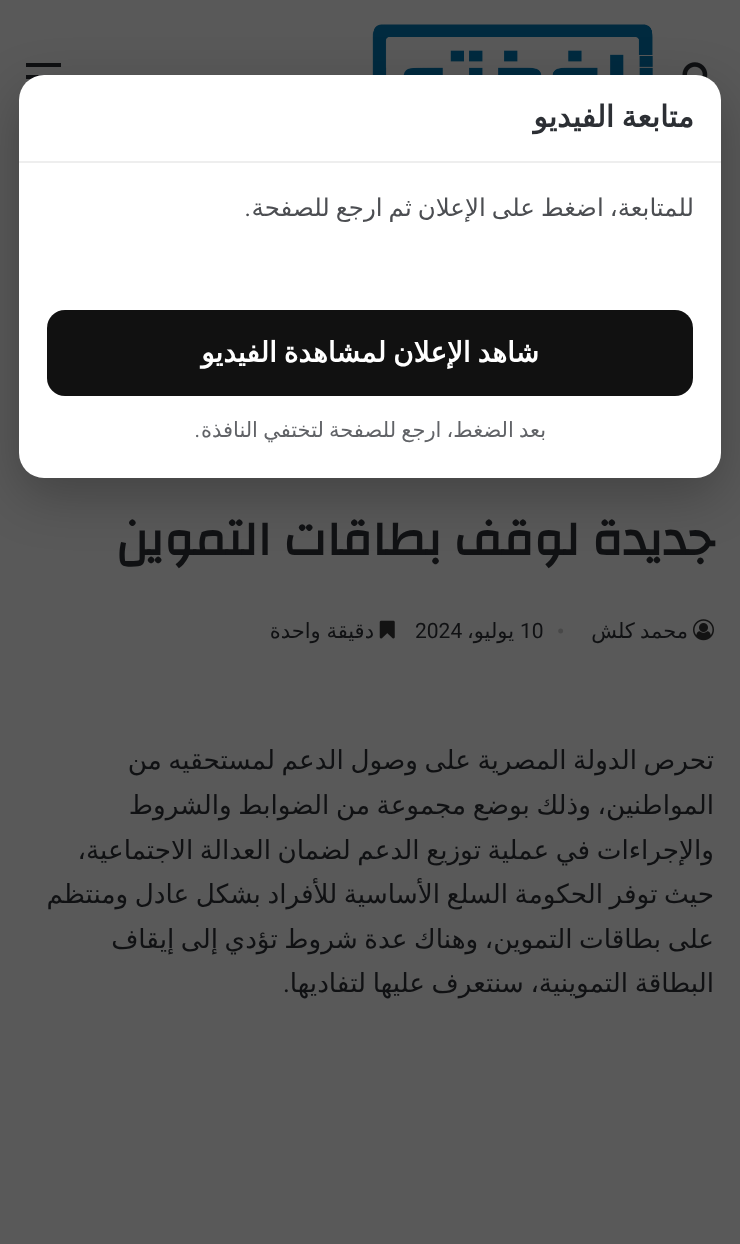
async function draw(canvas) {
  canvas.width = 740;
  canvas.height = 1244;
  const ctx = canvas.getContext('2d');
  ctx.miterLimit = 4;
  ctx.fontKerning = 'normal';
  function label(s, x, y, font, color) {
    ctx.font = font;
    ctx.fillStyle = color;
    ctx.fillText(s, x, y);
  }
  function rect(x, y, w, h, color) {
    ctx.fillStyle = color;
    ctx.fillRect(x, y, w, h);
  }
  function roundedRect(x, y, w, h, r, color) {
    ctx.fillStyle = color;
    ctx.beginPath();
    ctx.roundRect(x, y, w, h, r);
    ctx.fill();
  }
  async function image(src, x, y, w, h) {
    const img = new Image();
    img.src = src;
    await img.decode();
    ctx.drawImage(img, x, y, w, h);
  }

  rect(0, 0, 740, 1244, '#595959');
  await image('assets/img1.png', 682, 62, 26, 16);
  await image('assets/img2.png', 372, 24, 281, 51);
  rect(26, 75, 18, 4, '#0f1012');
  rect(26, 63, 35, 4, '#0f1012');
  ctx.fillStyle = '#00000040';
  ctx.filter = 'blur(26px)';
  ctx.beginPath();
  ctx.roundRect(19, 93, 702, 402, 25);
  ctx.fill();
  ctx.filter = 'none';
  roundedRect(19, 75, 702, 403, 25, '#fff');
  rect(19, 161, 702, 2, '#eee');
  ctx.wordSpacing = '-2px';
  ctx.direction = 'rtl';
  label('متابعة الفيديو', 694, 127, 'bold 29.75px DejaVu Sans', '#2c2f34');
  ctx.wordSpacing = '-1.75px';
  label('للمتابعة، اضغط على الإعلان ثم ارجع للصفحة', 694, 216, '24.5px DejaVu Sans', '#4c4e52');
  ctx.wordSpacing = '0px';
  label('.', 251, 216, '24.5px Roboto', '#4c4e52');
  roundedRect(47, 310, 646, 86, 18, '#111');
  ctx.wordSpacing = '-2px';
  label('شاهد الإعلان لمشاهدة الفيديو', 539, 362, 'bold 28px DejaVu Sans', '#fff');
  ctx.wordSpacing = '-1.5px';
  label('بعد الضغط، ارجع للصفحة لتختفي النافذة', 546, 437, '21px DejaVu Sans', '#616367');
  ctx.wordSpacing = '0px';
  label('.', 200, 437, '21px Roboto', '#616367');
  label('جديدة لوقف بطاقات التموين', 714, 555, 'bold 49px Changa', '#101113');
  await image('assets/img3.png', 693, 619, 21, 22);
  ctx.wordSpacing = '-1.5px';
  label('محمد كلش', 688, 638, '21px DejaVu Sans', '#101113');
  ctx.wordSpacing = '0px';
  ctx.direction = 'ltr';
  label('•', 557, 638, '21px Liberation Serif', '#484848');
  label('10', 520, 638, '21px Roboto', '#101113');
  ctx.direction = 'rtl';
  label('يوليو،', 514, 638, '21px DejaVu Sans', '#101113');
  ctx.direction = 'ltr';
  label('2024', 415, 638, '21px Roboto', '#101113');
  await image('assets/img4.png', 379, 620, 16, 19);
  ctx.wordSpacing = '-1px';
  ctx.direction = 'rtl';
  label('دقيقة واحدة', 374, 638, '21px DejaVu Sans', '#101113');
  ctx.wordSpacing = '-1.75px';
  label('تحرص الدولة المصرية على وصول الدعم لمستحقيه من', 714, 769, '26.25px DejaVu Sans', '#101113');
  label('المواطنين، وذلك بوضع مجموعة من الضوابط والشروط', 714, 814, '26.25px DejaVu Sans', '#101113');
  label('والإجراءات في عملية توزيع الدعم لضمان العدالة الاجتماعية،', 714, 859, '26.25px DejaVu Sans', '#101113');
  label('حيث توفر الحكومة السلع الأساسية للأفراد بشكل عادل ومنتظم', 714, 903, '26.25px DejaVu Sans', '#101113');
  label('على بطاقات التموين، وهناك عدة شروط تؤدي إلى إيقاف', 714, 948, '26.25px DejaVu Sans', '#101113');
  label('البطاقة التموينية، سنتعرف عليها لتفاديها', 714, 992, '26.25px DejaVu Sans', '#101113');
  ctx.wordSpacing = '0px';
  label('.', 290, 992, '26.25px Roboto', '#101113');
}

draw(document.querySelector('canvas'));
